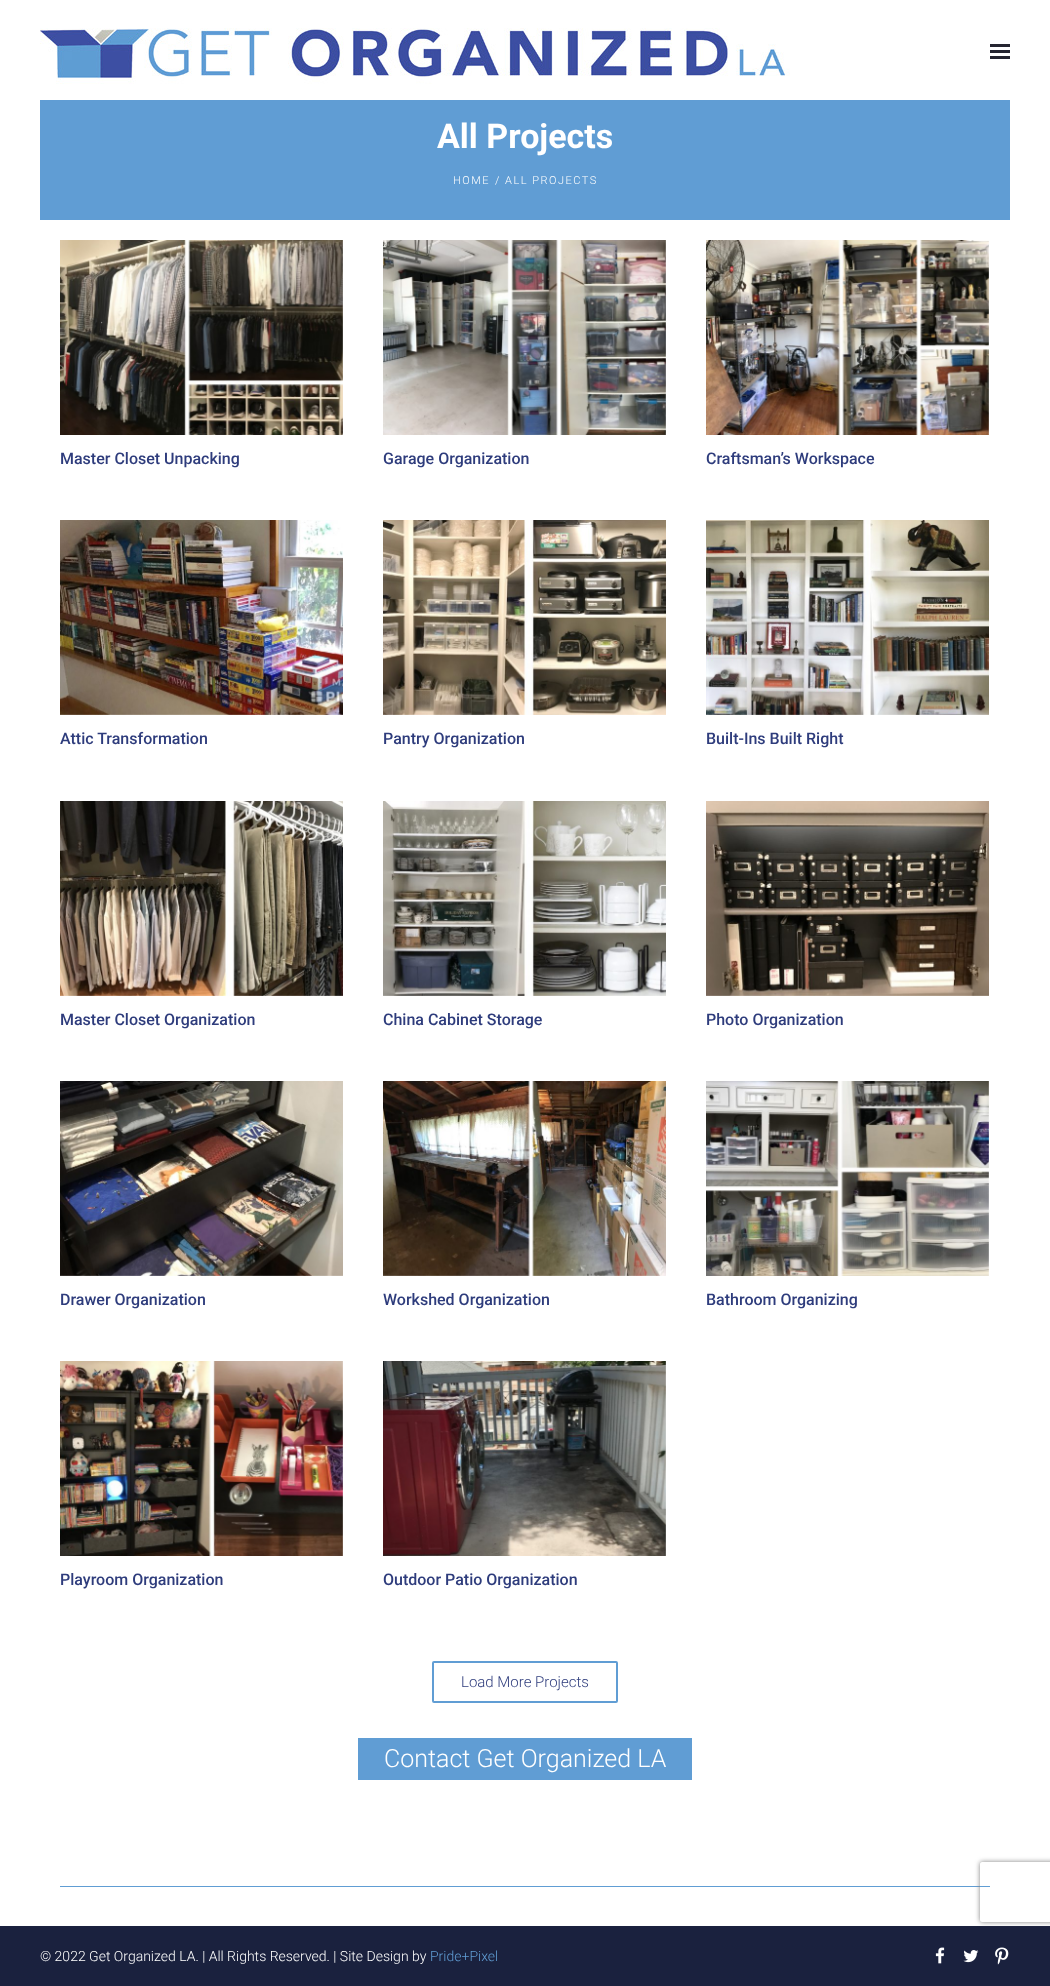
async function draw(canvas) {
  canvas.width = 1050;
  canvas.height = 1986;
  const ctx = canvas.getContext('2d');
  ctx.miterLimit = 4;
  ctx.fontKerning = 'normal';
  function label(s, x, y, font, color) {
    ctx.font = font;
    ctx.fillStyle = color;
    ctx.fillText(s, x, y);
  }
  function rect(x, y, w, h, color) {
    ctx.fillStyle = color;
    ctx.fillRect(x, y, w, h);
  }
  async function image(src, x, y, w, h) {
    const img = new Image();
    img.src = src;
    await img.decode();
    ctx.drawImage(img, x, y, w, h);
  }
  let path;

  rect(0, 0, 1050, 1986, '#fff');
  await image('assets/img1.png', 40, 28, 750, 56);
  rect(990, 50, 20, 3, '#252531');
  rect(990, 44, 20, 3, '#252531');
  rect(990, 56, 20, 3, '#252531');
  rect(40, 100, 970, 120, '#609dd4');
  label('All Projects', 437, 148, 'bold 34px Roboto', '#fff');
  ctx.letterSpacing = '1.5px';
  label('HOME', 453, 184, '300 11px Roboto', '#fff');
  label('/ ALL PROJECTS', 495, 184, '300 11px Roboto', '#fff');
  await image('assets/img2.png', 60, 240, 283, 195);
  ctx.letterSpacing = '0px';
  label('Master Closet Unpacking', 60, 464, '500 16px Roboto', '#2e3c7c');
  await image('assets/img3.png', 383, 240, 283, 195);
  label('Garage Organization', 383, 464, '500 16px Roboto', '#2e3c7c');
  await image('assets/img4.png', 706, 240, 283, 195);
  label('Craftsman’s Workspace', 706, 464, '500 16px Roboto', '#2e3c7c');
  await image('assets/img5.png', 60, 520, 283, 195);
  label('Attic Transformation', 60, 744, '500 16px Roboto', '#2e3c7c');
  await image('assets/img6.png', 383, 520, 283, 195);
  label('Pantry Organization', 383, 744, '500 16px Roboto', '#2e3c7c');
  await image('assets/img7.png', 706, 520, 283, 195);
  label('Built-Ins Built Right', 706, 744, '500 16px Roboto', '#2e3c7c');
  await image('assets/img8.png', 60, 801, 283, 195);
  label('Master Closet Organization', 60, 1025, '500 16px Roboto', '#2e3c7c');
  await image('assets/img9.png', 383, 801, 283, 195);
  label('China Cabinet Storage', 383, 1025, '500 16px Roboto', '#2e3c7c');
  await image('assets/img10.png', 706, 801, 283, 195);
  label('Photo Organization', 706, 1025, '500 16px Roboto', '#2e3c7c');
  await image('assets/img11.png', 60, 1081, 283, 195);
  label('Drawer Organization', 60, 1305, '500 16px Roboto', '#2e3c7c');
  await image('assets/img12.png', 383, 1081, 283, 195);
  label('Workshed Organization', 383, 1305, '500 16px Roboto', '#2e3c7c');
  await image('assets/img13.png', 706, 1081, 283, 195);
  label('Bathroom Organizing', 706, 1305, '500 16px Roboto', '#2e3c7c');
  await image('assets/img14.png', 60, 1361, 283, 195);
  label('Playroom Organization', 60, 1585, '500 16px Roboto', '#2e3c7c');
  await image('assets/img15.png', 383, 1361, 283, 195);
  label('Outdoor Patio Organization', 383, 1585, '500 16px Roboto', '#2e3c7c');
  ctx.beginPath();
  ctx.roundRect(433, 1662, 184, 40, 1);
  ctx.strokeStyle = '#609dd4';
  ctx.lineWidth = 2;
  ctx.stroke();
  label('Load More Projects', 461, 1687, '300 15px Roboto', '#2e3c7c');
  rect(358, 1738, 334, 42, '#609dd4');
  label('Contact Get Organized LA', 384, 1767, '300 25px Roboto', '#fff');
  rect(60, 1886, 930, 1, '#609dd4');
  rect(0, 1926, 1050, 60, '#1a213e');
  label('© 2022 Get Organized LA. | All Rights Reserved. | Site Design by', 40, 1961, '300 14px Roboto', '#fff');
  label('Pride+Pixel', 430, 1961, '300 14px Roboto', '#609dd4');
  await image('assets/img16.png', 935, 1947, 10, 17);
  await image('assets/img17.png', 963, 1950, 16, 13);
  await image('assets/img18.png', 995, 1947, 14, 18);
  ctx.save();
  path = new Path2D('M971 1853H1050V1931H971ZM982 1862H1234C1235 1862 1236 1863 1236 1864V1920C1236 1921 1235 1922 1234 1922H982C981 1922 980 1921 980 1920V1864C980 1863 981 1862 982 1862Z');
  ctx.clip(path, 'evenodd');
  ctx.fillStyle = '#808080';
  ctx.filter = 'blur(2.5px)';
  ctx.beginPath();
  ctx.roundRect(980, 1862, 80, 60, 2);
  ctx.fill();
  ctx.filter = 'none';
  ctx.restore();
}

draw(document.querySelector('canvas'));
